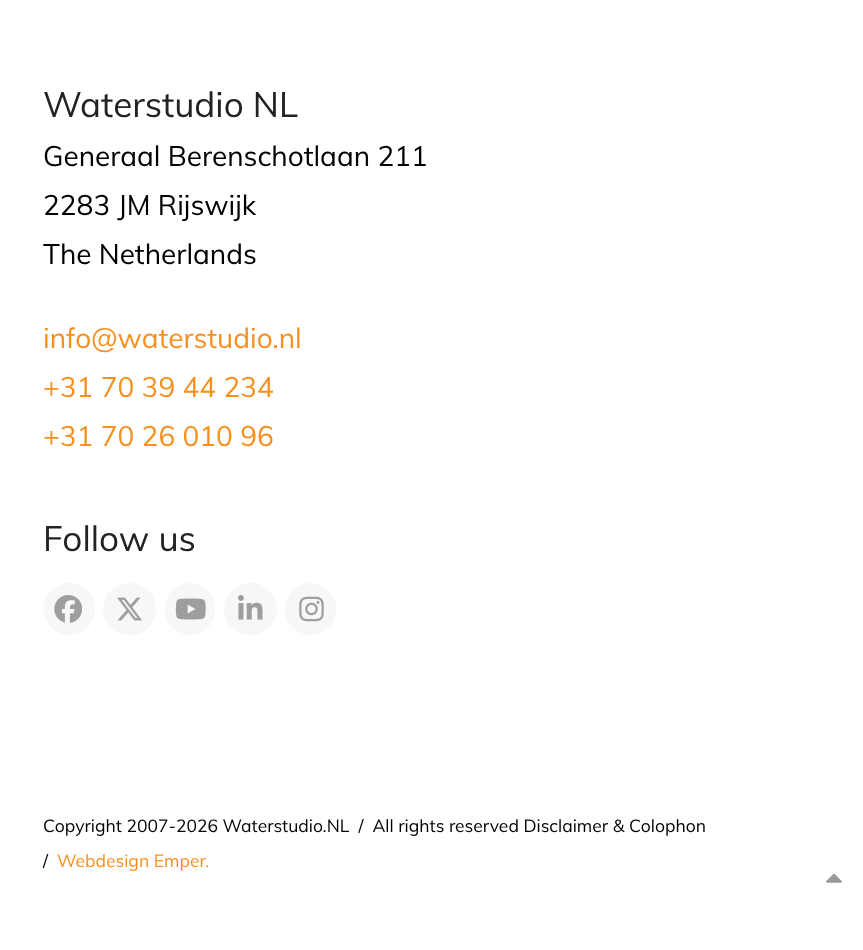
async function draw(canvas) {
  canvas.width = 863;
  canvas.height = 950;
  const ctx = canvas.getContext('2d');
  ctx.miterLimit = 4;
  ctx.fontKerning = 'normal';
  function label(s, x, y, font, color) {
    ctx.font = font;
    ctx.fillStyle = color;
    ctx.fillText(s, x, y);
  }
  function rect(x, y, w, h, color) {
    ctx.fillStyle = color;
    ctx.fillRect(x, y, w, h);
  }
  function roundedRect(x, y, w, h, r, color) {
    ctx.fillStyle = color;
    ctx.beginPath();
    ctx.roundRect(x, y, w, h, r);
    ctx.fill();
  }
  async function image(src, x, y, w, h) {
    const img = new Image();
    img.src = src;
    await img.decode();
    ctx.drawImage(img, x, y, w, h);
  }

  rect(0, 0, 863, 950, '#fff');
  label('Waterstudio NL', 43, 117, '35px Muli', '#222');
  label('Generaal Berenschotlaan 211', 43, 166, '28px Muli', '#000');
  label('2283 JM Rijswijk', 43, 215, '28px Muli', '#000');
  label('The Netherlands', 43, 264, '28px Muli', '#000');
  label('info@waterstudio.nl', 43, 348, '28px Muli', '#f78f1e');
  label('+31 70 39 44 234', 43, 397, '28px Muli', '#f78f1e');
  label('+31 70 26 010 96', 43, 446, '28px Muli', '#f78f1e');
  label('Follow us', 43, 551, '35px Muli', '#222');
  roundedRect(44, 583, 51, 52, 25.5, '#f7f7f7');
  await image('assets/img1.png', 54, 595, 28, 28);
  roundedRect(103, 583, 53, 52, 26, '#f7f7f7');
  await image('assets/img2.png', 117, 597, 25, 24);
  roundedRect(165, 583, 50, 52, 25, '#f7f7f7');
  await image('assets/img3.png', 175, 598, 31, 22);
  roundedRect(224, 583, 53, 52, 26, '#f7f7f7');
  await image('assets/img4.png', 238, 595, 25, 25);
  roundedRect(285, 583, 51, 52, 25.5, '#f7f7f7');
  await image('assets/img5.png', 299, 596, 25, 26);
  label('Copyright 2007-2026 Waterstudio.NL  /  All rights reserved Disclaimer & Colophon', 43, 832, '17.5px Muli', '#000');
  label('/', 43, 867, '17.5px Muli', '#000');
  label('Webdesign Emper.', 57, 867, '17.5px Muli', '#f78f1e');
  await image('assets/img6.png', 826, 873, 16, 10);
}

draw(document.querySelector('canvas'));
